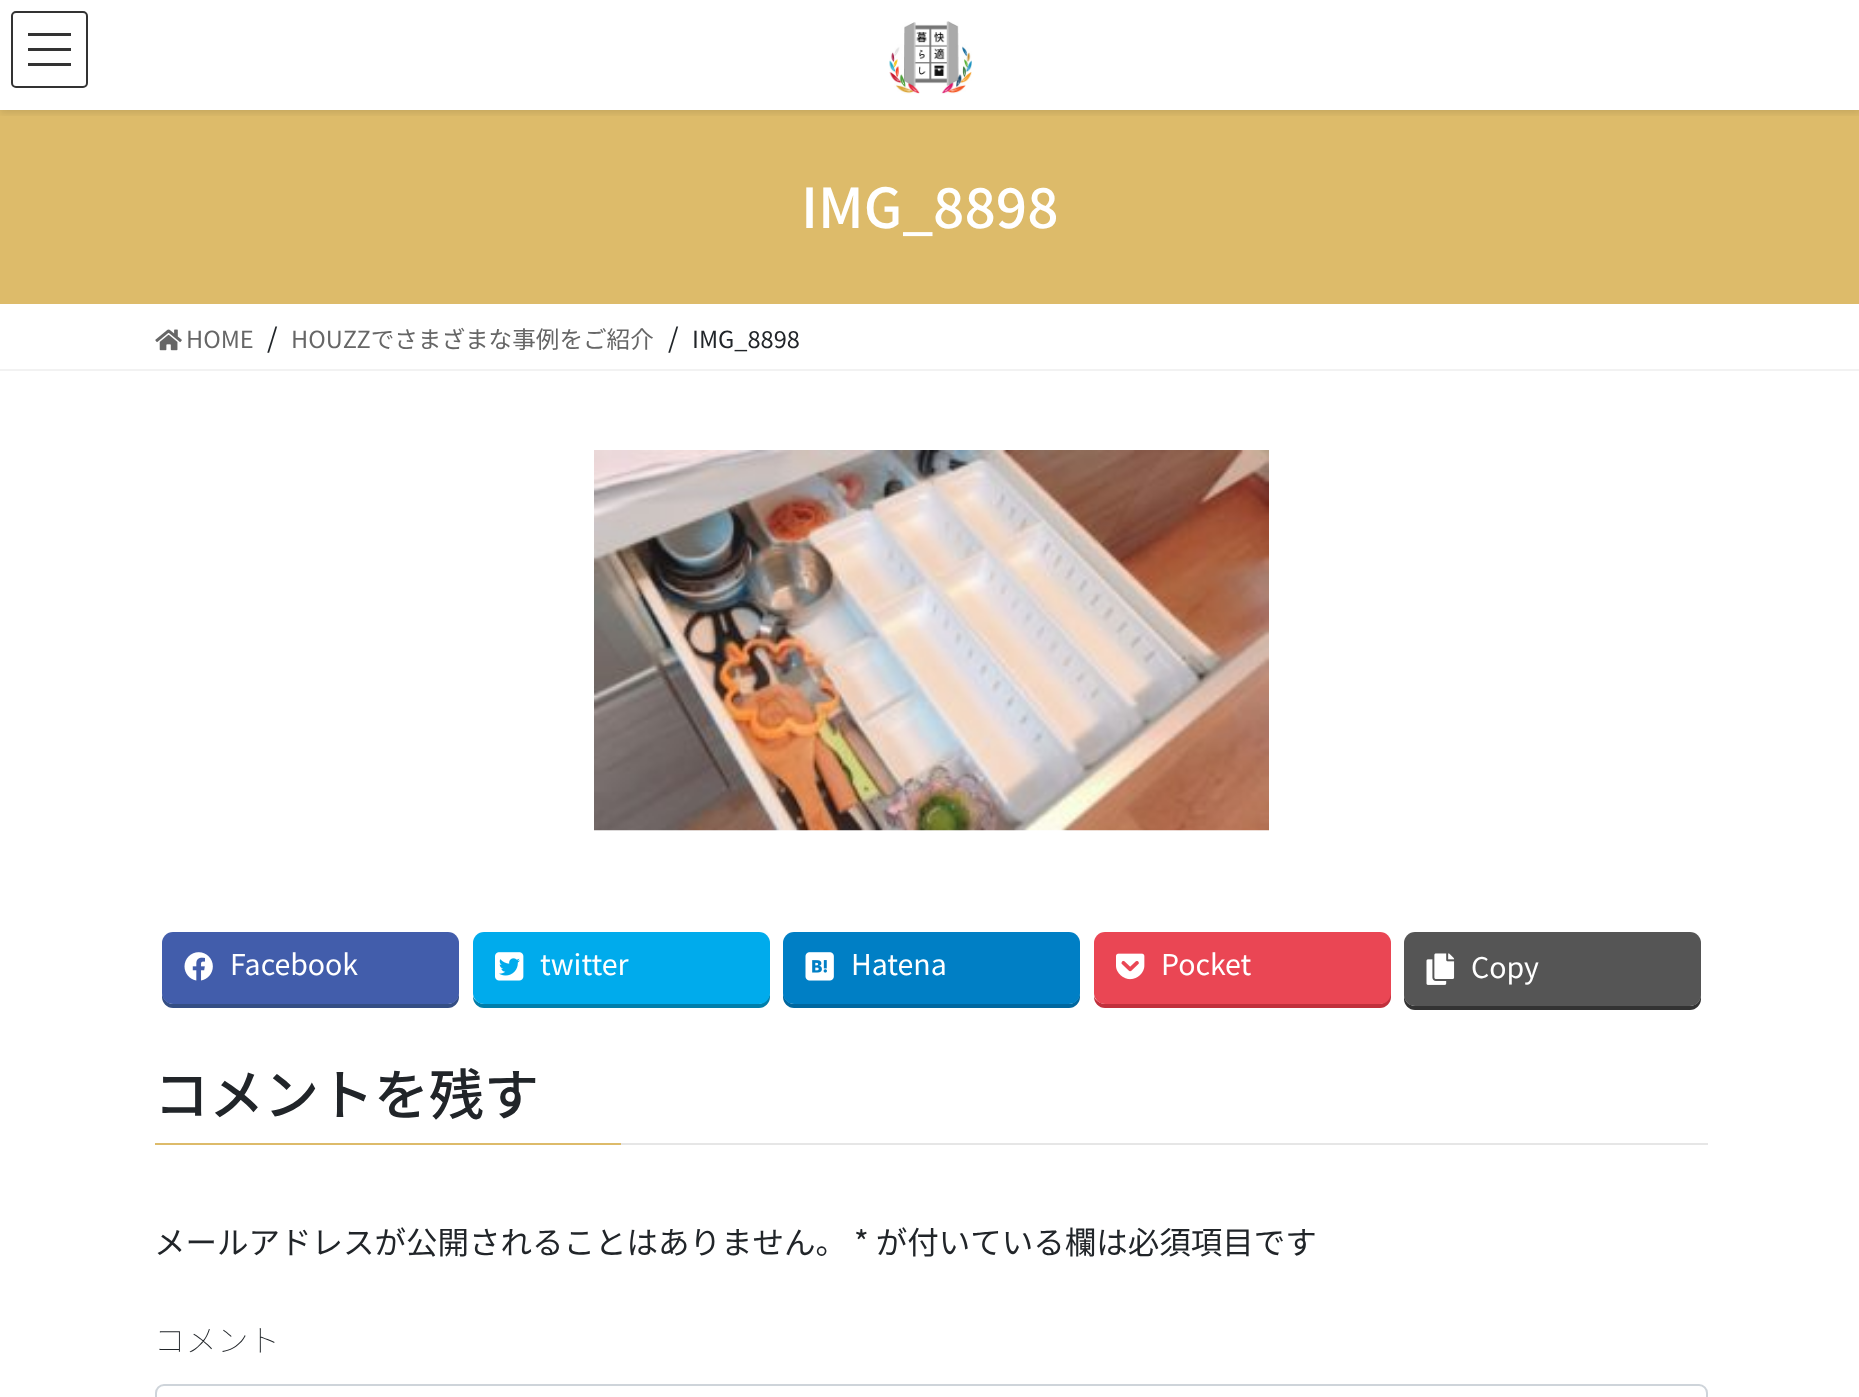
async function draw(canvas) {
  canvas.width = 1859;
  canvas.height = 1397;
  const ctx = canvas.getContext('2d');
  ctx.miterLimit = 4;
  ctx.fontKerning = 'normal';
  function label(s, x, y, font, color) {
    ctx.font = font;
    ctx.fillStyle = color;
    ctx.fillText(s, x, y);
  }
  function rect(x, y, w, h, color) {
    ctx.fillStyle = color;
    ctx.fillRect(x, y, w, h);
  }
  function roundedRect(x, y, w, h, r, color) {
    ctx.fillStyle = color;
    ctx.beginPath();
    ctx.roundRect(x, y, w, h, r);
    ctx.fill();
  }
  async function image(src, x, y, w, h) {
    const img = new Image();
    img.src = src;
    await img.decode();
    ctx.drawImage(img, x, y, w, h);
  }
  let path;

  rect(0, 0, 1859, 1397, '#fff');
  rect(0, 110, 1859, 194, '#ddbb6a');
  ctx.save();
  ctx.beginPath();
  ctx.rect(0, 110, 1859, 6);
  ctx.clip();
  ctx.fillStyle = '#0000001a';
  ctx.filter = 'blur(3.5px)';
  ctx.beginPath();
  ctx.rect(0, 2, 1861, 111);
  ctx.fill();
  ctx.filter = 'none';
  ctx.restore();
  await image('assets/img1.png', 889, 21, 83, 73);
  rect(28, 33, 43, 3, '#333');
  rect(28, 48, 43, 3, '#333');
  rect(28, 63, 43, 3, '#333');
  ctx.beginPath();
  ctx.roundRect(12, 12, 75, 75, 4);
  ctx.strokeStyle = '#333';
  ctx.lineWidth = 2;
  ctx.stroke();
  label('IMG_8898', 801, 228, '500 55px Noto Sans JP', '#fff');
  rect(0, 369, 1859, 2, '#f2f2f2');
  await image('assets/img2.png', 155, 329, 27, 22);
  label('HOME', 186, 348, '23.6px Noto Sans JP', '#666');
  label('/', 267, 348, '27px Noto Sans JP', '#212529');
  label('HOUZZでさまざまな事例をご紹介', 291, 348, '23.6px Noto Sans JP', '#666');
  label('/', 668, 348, '27px Noto Sans JP', '#212529');
  label('IMG_8898', 692, 348, '23.6px Noto Sans JP', '#212529');
  await image('assets/img3.png', 594, 450, 675, 381);
  ctx.fillStyle = '#344e84';
  path = new Path2D('M162 992V997C162 1003 167 1008 173 1008H448C454 1008 459 1003 459 997V992C459 998 454 1004 448 1004H173C167 1004 162 998 162 992Z');
  ctx.fill(path);
  roundedRect(162, 932, 297, 72, 11, '#425dab');
  await image('assets/img4.png', 184, 952, 29, 29);
  label('Facebook', 230, 975, '28.5px Noto Sans JP', '#fff');
  ctx.fillStyle = '#007eaa';
  path = new Path2D('M473 996V997C473 1003 478 1008 484 1008H759C765 1008 770 1003 770 997V947V944V992C770 998 764 1004 758 1004H484C479 1004 474 1000 473 996Z');
  ctx.fill(path);
  roundedRect(473, 932, 297, 72, 11, '#00abec');
  await image('assets/img5.png', 495, 952, 29, 29);
  label('twitter', 540, 975, '28.5px Noto Sans JP', '#fff');
  ctx.fillStyle = '#00679f';
  path = new Path2D('M783 992V997C783 1003 788 1008 794 1008H1069C1075 1008 1080 1003 1080 997V992C1080 998 1075 1004 1069 1004H794C788 1004 783 998 783 992Z');
  ctx.fill(path);
  roundedRect(783, 932, 297, 72, 11, '#007fc5');
  await image('assets/img6.png', 805, 952, 29, 29);
  label('Hatena', 851, 975, '28.5px Noto Sans JP', '#fff');
  ctx.fillStyle = '#c1303c';
  path = new Path2D('M1094 996V997C1094 1003 1099 1008 1105 1008H1380C1386 1008 1391 1003 1391 997V947L1390 944V992C1390 998 1385 1004 1379 1004H1105C1100 1004 1095 1000 1094 996Z');
  ctx.fill(path);
  roundedRect(1094, 932, 297, 72, 11, '#ea4654');
  await image('assets/img7.png', 1116, 953, 29, 27);
  label('Pocket', 1161, 975, '28.5px Noto Sans JP', '#fff');
  ctx.fillStyle = '#333';
  path = new Path2D('M1404 994V999C1404 1005 1409 1010 1415 1010H1690C1696 1010 1701 1005 1701 999V994C1701 1001 1696 1006 1690 1006H1415C1409 1006 1404 1001 1404 994Z');
  ctx.fill(path);
  roundedRect(1404, 932, 297, 74, 11, '#555');
  await image('assets/img8.png', 1426, 953, 29, 32);
  label('Copy', 1471, 978, '28.5px Noto Sans JP', '#fff');
  rect(621, 1143, 1087, 2, '#e6e6e6');
  label('コメントを残す', 154, 1115, '500 55px Noto Sans JP', '#212529');
  rect(155, 1143, 466, 2, '#ddbb6a');
  label('メールアドレスが公開されることはありません。 * が付いている欄は必須項目です', 154, 1254, '31.5px Noto Sans JP', '#212529');
  label('コメント', 154, 1352, '100 31.5px Noto Sans JP', '#212529');
  ctx.beginPath();
  ctx.roundRect(156, 1385, 1551, 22, 8);
  ctx.strokeStyle = '#ced4da';
  ctx.stroke();
}

draw(document.querySelector('canvas'));
